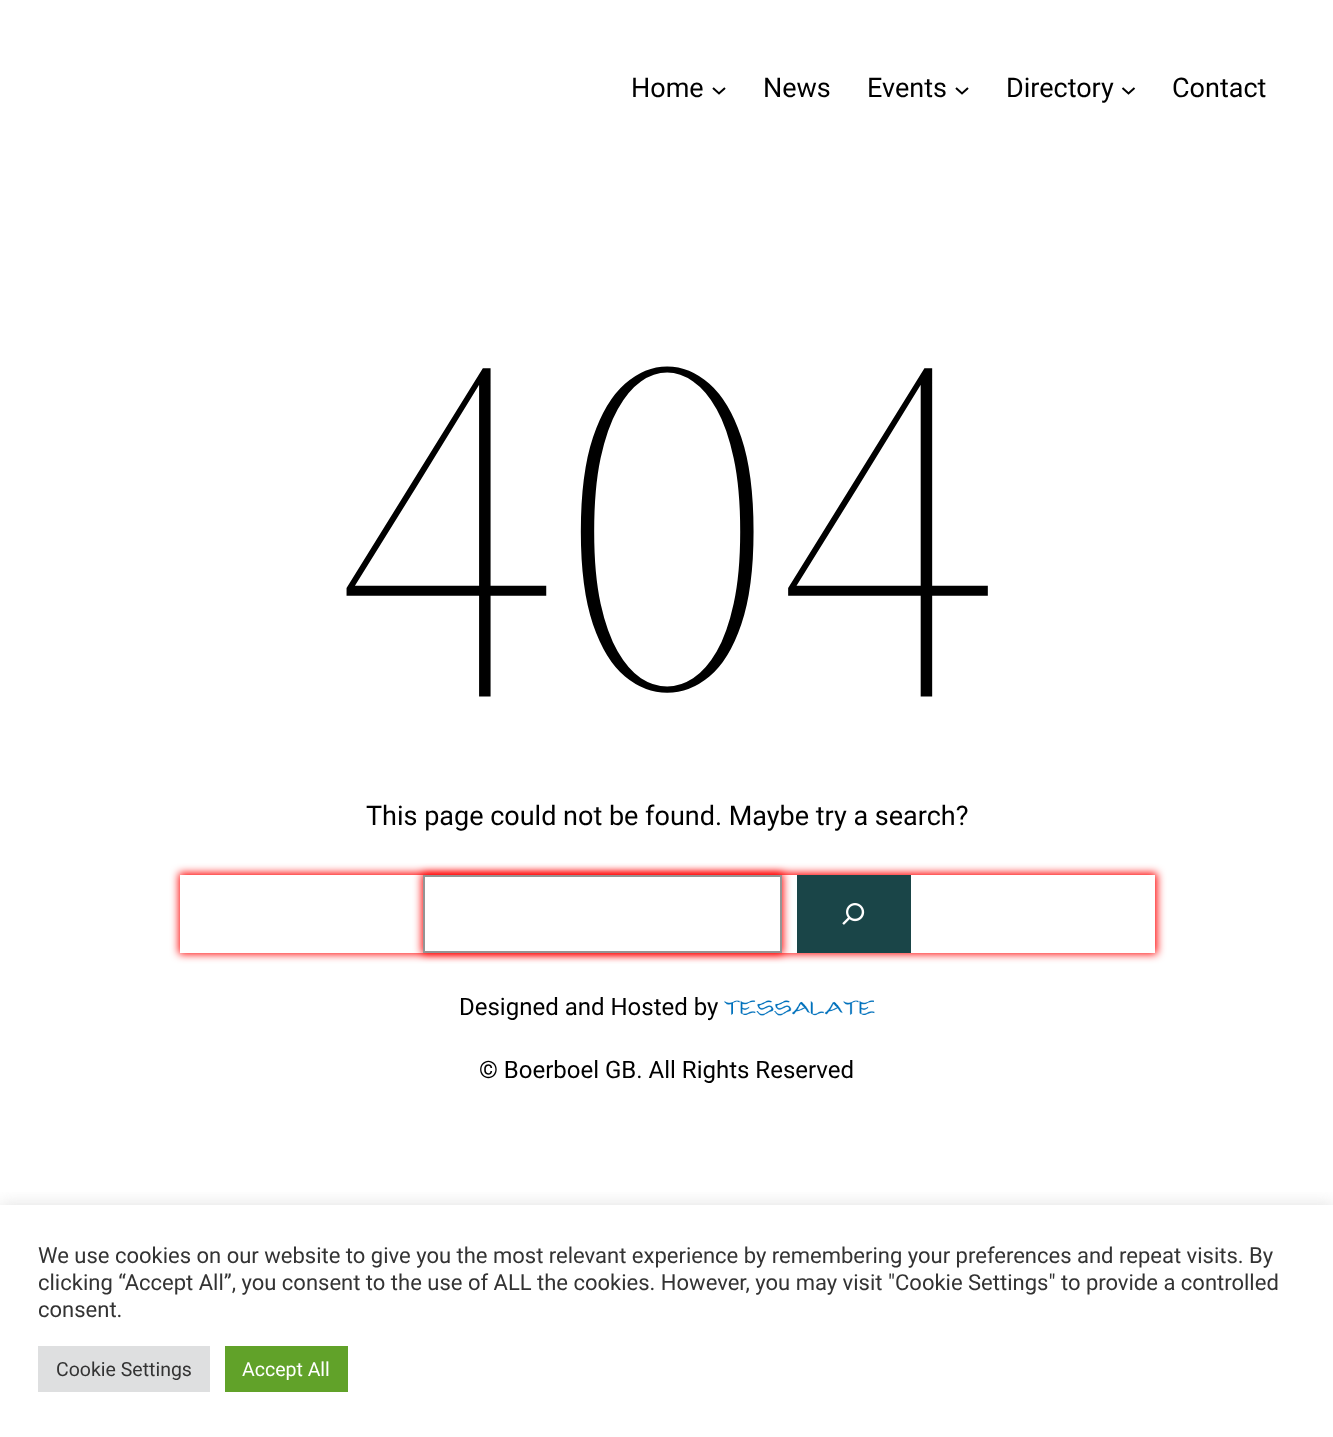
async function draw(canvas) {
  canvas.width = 1333;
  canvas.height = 1437;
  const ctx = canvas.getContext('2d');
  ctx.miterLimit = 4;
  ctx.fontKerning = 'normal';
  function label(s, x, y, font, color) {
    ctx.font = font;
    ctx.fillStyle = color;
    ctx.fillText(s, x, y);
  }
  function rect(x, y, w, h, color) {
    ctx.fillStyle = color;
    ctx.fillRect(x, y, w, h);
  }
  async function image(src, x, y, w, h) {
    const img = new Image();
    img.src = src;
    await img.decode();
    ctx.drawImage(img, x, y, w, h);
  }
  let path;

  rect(0, 0, 1333, 1437, '#fff');
  label('Home', 631, 97, '27px Roboto', '#000');
  path = new Path2D('M713 88L719 93.5L725 88');
  ctx.strokeStyle = '#000';
  ctx.lineWidth = 2;
  ctx.stroke(path);
  label('News', 763, 97, '27px Roboto', '#000');
  label('Events', 867, 97, '27px Roboto', '#000');
  path = new Path2D('M956 88L962 93.5L968 88');
  ctx.stroke(path);
  label('Directory', 1006, 97, '27px Roboto', '#000');
  path = new Path2D('M1122.5 88L1128.5 93.5L1134.5 88');
  ctx.stroke(path);
  label('Contact', 1172, 97, '27px Roboto', '#000');
  label('404', 336, 687, '200 480px "Source Serif 4"', '#000');
  label('This page could not be found. Maybe try a search?', 366, 825, '27px Roboto', '#000');
  ctx.save();
  path = new Path2D('M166 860H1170V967H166ZM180 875H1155V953H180Z');
  ctx.clip(path, 'evenodd');
  ctx.fillStyle = '#f00';
  ctx.filter = 'blur(4px)';
  ctx.beginPath();
  ctx.rect(179, 873, 978, 81);
  ctx.fill();
  ctx.filter = 'none';
  ctx.restore();
  ctx.fillStyle = '#f00';
  ctx.filter = 'blur(4px)';
  ctx.beginPath();
  ctx.rect(422, 873, 361, 81);
  ctx.fill();
  ctx.filter = 'none';
  ctx.fillStyle = '#fff';
  ctx.beginPath();
  ctx.rect(424, 876, 357, 76);
  ctx.fill();
  ctx.strokeStyle = '#949494';
  ctx.stroke();
  rect(797, 875, 114, 78, '#1a4548');
  await image('assets/img1.png', 842, 903, 23, 22);
  label('Designed and Hosted by', 459, 1015, '24px Roboto', '#000');
  await image('assets/img2.png', 724, 1000, 151, 16);
  label('© Boerboel GB. All Rights Reserved', 479, 1078, '24px Roboto', '#000');
  ctx.save();
  ctx.beginPath();
  ctx.rect(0, 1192, 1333, 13);
  ctx.clip();
  ctx.fillStyle = '#acabab4d';
  ctx.filter = 'blur(7.5px)';
  ctx.beginPath();
  ctx.rect(0, 1203, 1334, 233);
  ctx.fill();
  ctx.filter = 'none';
  ctx.restore();
  label('We use cookies on our website to give you the most relevant experience by remembering your preferences and repeat visits. By', 38, 1263, '22px Roboto', '#333');
  label('clicking “Accept All”, you consent to the use of ALL the cookies. However, you may visit "Cookie Settings" to provide a controlled', 38, 1290, '22px Roboto', '#333');
  label('consent.', 38, 1317, '22px Roboto', '#333');
  rect(38, 1346, 172, 46, '#dedfe0');
  label('Cookie Settings', 56, 1376, '19.5px Roboto', '#333');
  rect(225, 1346, 123, 46, '#61a229');
  label('Accept All', 242, 1376, '19.5px Roboto', '#fff');
}

draw(document.querySelector('canvas'));
